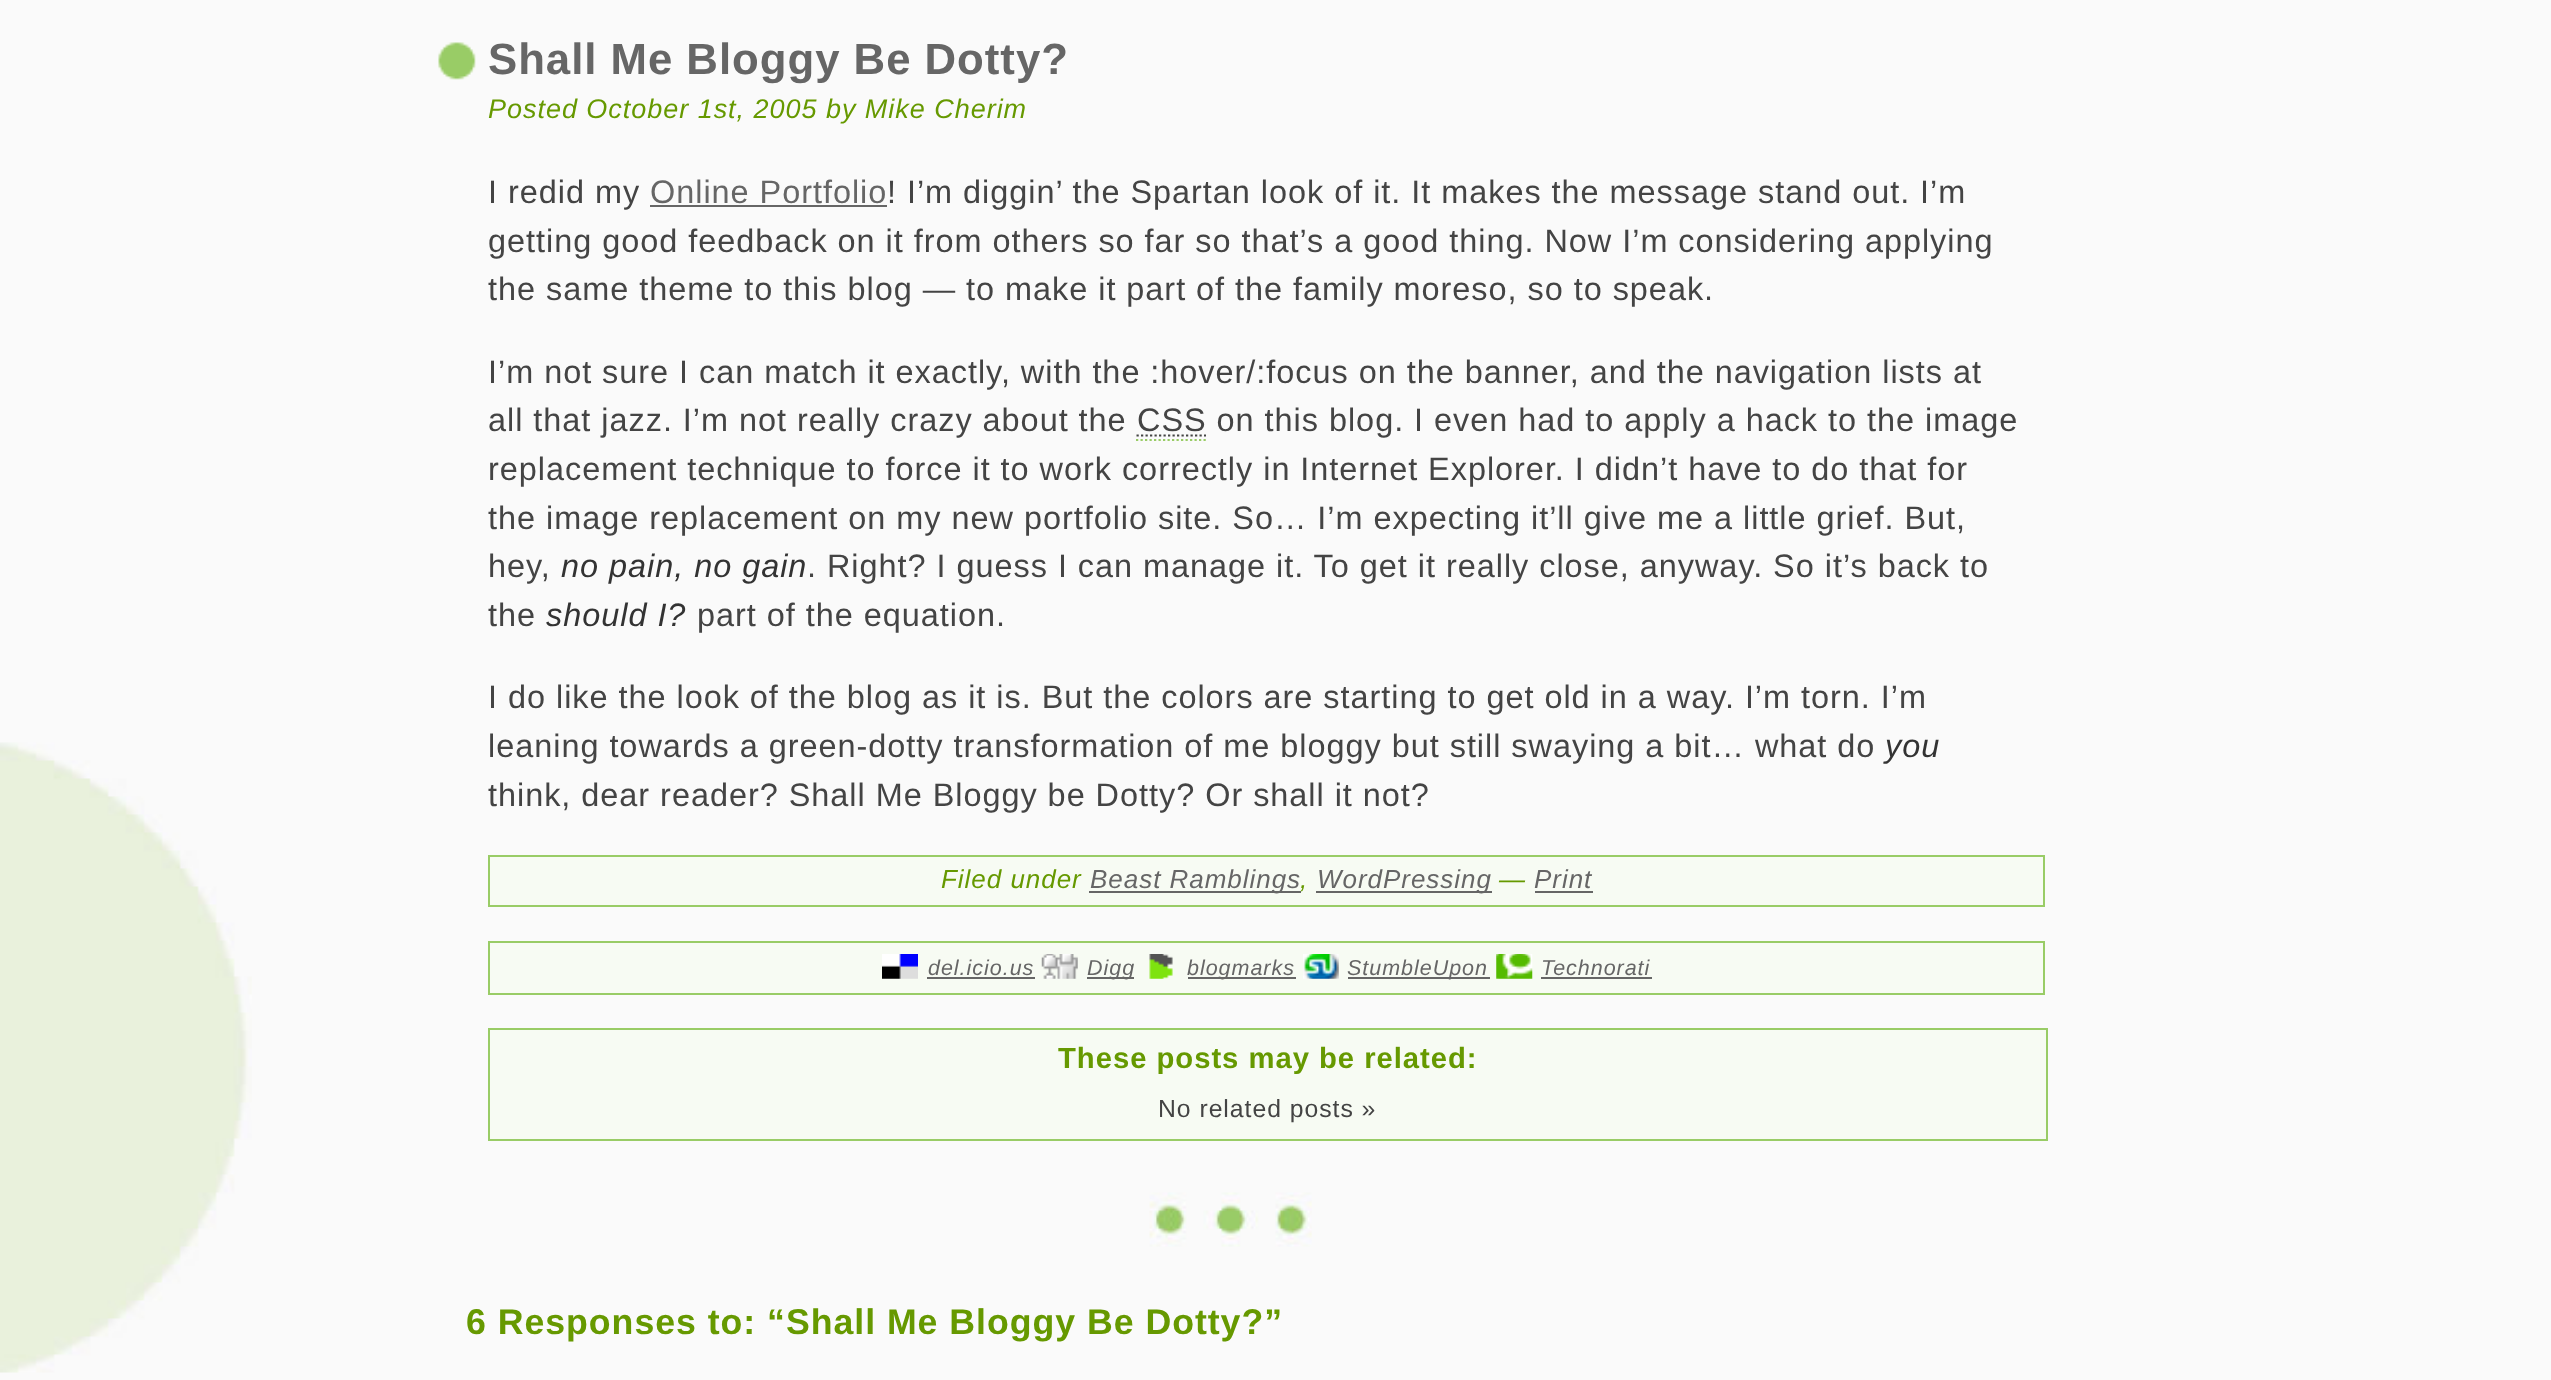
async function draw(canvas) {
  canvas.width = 2551;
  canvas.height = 1380;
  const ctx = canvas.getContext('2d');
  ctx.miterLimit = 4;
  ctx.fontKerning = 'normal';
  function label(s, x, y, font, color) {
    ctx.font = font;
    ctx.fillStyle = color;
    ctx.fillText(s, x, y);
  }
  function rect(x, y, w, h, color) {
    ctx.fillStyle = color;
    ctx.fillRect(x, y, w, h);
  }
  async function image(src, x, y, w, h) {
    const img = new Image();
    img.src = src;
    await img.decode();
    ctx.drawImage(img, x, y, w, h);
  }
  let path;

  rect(0, 0, 2551, 1380, '#fafafa');
  await image('assets/img1.png', 0, 742, 252, 631);
  await image('assets/img2.png', 438, 42, 38, 38);
  ctx.letterSpacing = '0.97px';
  label('Shall Me Bloggy Be Dotty?', 488, 74, 'bold 43.75px Liberation Sans', '#666');
  label('Posted October 1st, 2005 by Mike Cherim', 488, 118, 'italic 27px Liberation Sans', '#690');
  label('I redid my', 488, 203, '32.45px Liberation Sans', '#444');
  label('Online Portfolio', 650, 203, '32.45px Liberation Sans', '#666');
  rect(650, 205, 237, 2, '#666');
  label('! I’m diggin’ the Spartan look of it. It makes the message stand out. I’m', 887, 203, '32.45px Liberation Sans', '#444');
  label('getting good feedback on it from others so far so that’s a good thing. Now I’m considering applying', 488, 252, '32.45px Liberation Sans', '#444');
  label('the same theme to this blog — to make it part of the family moreso, so to speak.', 488, 300, '32.45px Liberation Sans', '#444');
  label('I’m not sure I can match it exactly, with the :hover/:focus on the banner, and the navigation lists at', 488, 383, '32.45px Liberation Sans', '#444');
  label('all that jazz. I’m not really crazy about the', 488, 431, '32.45px Liberation Sans', '#444');
  path = new Path2D('M1136.5 435.5H1206');
  ctx.strokeStyle = '#444';
  ctx.lineWidth = 2.2;
  ctx.setLineDash([2.25, 2.25]);
  ctx.stroke(path);
  label('CSS on this blog. I even had to apply a hack to the image', 1137, 431, '32.45px Liberation Sans', '#444');
  path = new Path2D('M1136 440H1206');
  ctx.strokeStyle = '#9c6';
  ctx.stroke(path);
  label('replacement technique to force it to work correctly in Internet Explorer. I didn’t have to do that for', 488, 480, '32.45px Liberation Sans', '#444');
  label('the image replacement on my new portfolio site. So… I’m expecting it’ll give me a little grief. But,', 488, 529, '32.45px Liberation Sans', '#444');
  label('hey,', 488, 577, '32.45px Liberation Sans', '#444');
  label('no pain, no gain', 561, 577, 'italic 32.45px Liberation Sans', '#333');
  label('. Right? I guess I can manage it. To get it really close, anyway. So it’s back to', 807, 577, '32.45px Liberation Sans', '#444');
  label('the', 488, 626, '32.45px Liberation Sans', '#444');
  label('should I?', 546, 626, 'italic 32.45px Liberation Sans', '#333');
  label('part of the equation.', 697, 626, '32.45px Liberation Sans', '#444');
  label('I do like the look of the blog as it is. But the colors are starting to get old in a way. I’m torn. I’m', 488, 708, '32.45px Liberation Sans', '#444');
  label('leaning towards a green-dotty transformation of me bloggy but still swaying a bit… what do', 488, 757, '32.45px Liberation Sans', '#444');
  label('you', 1885, 757, 'italic 32.45px Liberation Sans', '#333');
  label('think, dear reader? Shall Me Bloggy be Dotty? Or shall it not?', 488, 806, '32.45px Liberation Sans', '#444');
  ctx.fillStyle = '#f7fbf3';
  ctx.beginPath();
  ctx.rect(489, 856, 1555, 50);
  ctx.fill();
  ctx.lineWidth = 2;
  ctx.setLineDash([]);
  ctx.stroke();
  label('Filed under', 941, 888, 'italic 26px Liberation Sans', '#690');
  rect(1089, 891, 212, 2, '#666');
  label('Beast Ramblings', 1090, 888, 'italic 26px Liberation Sans', '#666');
  rect(1316, 891, 176, 2, '#666');
  label('WordPressing', 1317, 888, 'italic 26px Liberation Sans', '#666');
  label('—', 1499, 888, 'italic 26px Liberation Sans', '#690');
  label('Print', 1534, 888, 'italic 26px Liberation Sans', '#666');
  rect(1535, 891, 58, 2, '#666');
  label(',', 1300, 888, 'italic 26px Liberation Sans', '#690');
  ctx.fillStyle = '#f7fbf3';
  ctx.beginPath();
  ctx.rect(489, 942, 1555, 52);
  ctx.fill();
  ctx.stroke();
  await image('assets/img3.png', 882, 954, 36, 25);
  label('del.icio.us', 928, 975, 'italic 21.5px Liberation Sans', '#666');
  rect(927, 977, 108, 2, '#666');
  await image('assets/img4.png', 1041, 954, 37, 25);
  rect(1087, 977, 47, 2, '#666');
  label('Digg', 1087, 975, 'italic 21.5px Liberation Sans', '#666');
  await image('assets/img5.png', 1149, 954, 24, 25);
  rect(1188, 977, 108, 2, '#666');
  label('blogmarks', 1187, 975, 'italic 21.5px Liberation Sans', '#666');
  await image('assets/img6.png', 1303, 954, 36, 25);
  rect(1348, 977, 142, 2, '#666');
  label('StumbleUpon', 1347, 975, 'italic 21.5px Liberation Sans', '#666');
  await image('assets/img7.png', 1496, 954, 37, 25);
  label('Technorati', 1541, 975, 'italic 21.5px Liberation Sans', '#666');
  rect(1541, 977, 111, 2, '#666');
  ctx.fillStyle = '#f7fbf3';
  ctx.beginPath();
  ctx.rect(489, 1029, 1558, 111);
  ctx.fill();
  ctx.stroke();
  label('These posts may be related:', 1058, 1068, 'bold 29.25px Liberation Sans', '#690');
  label('No related posts »', 1158, 1117, '24.75px Liberation Sans', '#444');
  await image('assets/img8.png', 1149, 1192, 163, 55);
  label('6 Responses to: “Shall Me Bloggy Be Dotty?”', 466, 1334, 'bold 35.7px Liberation Sans', '#690');
}

draw(document.querySelector('canvas'));
